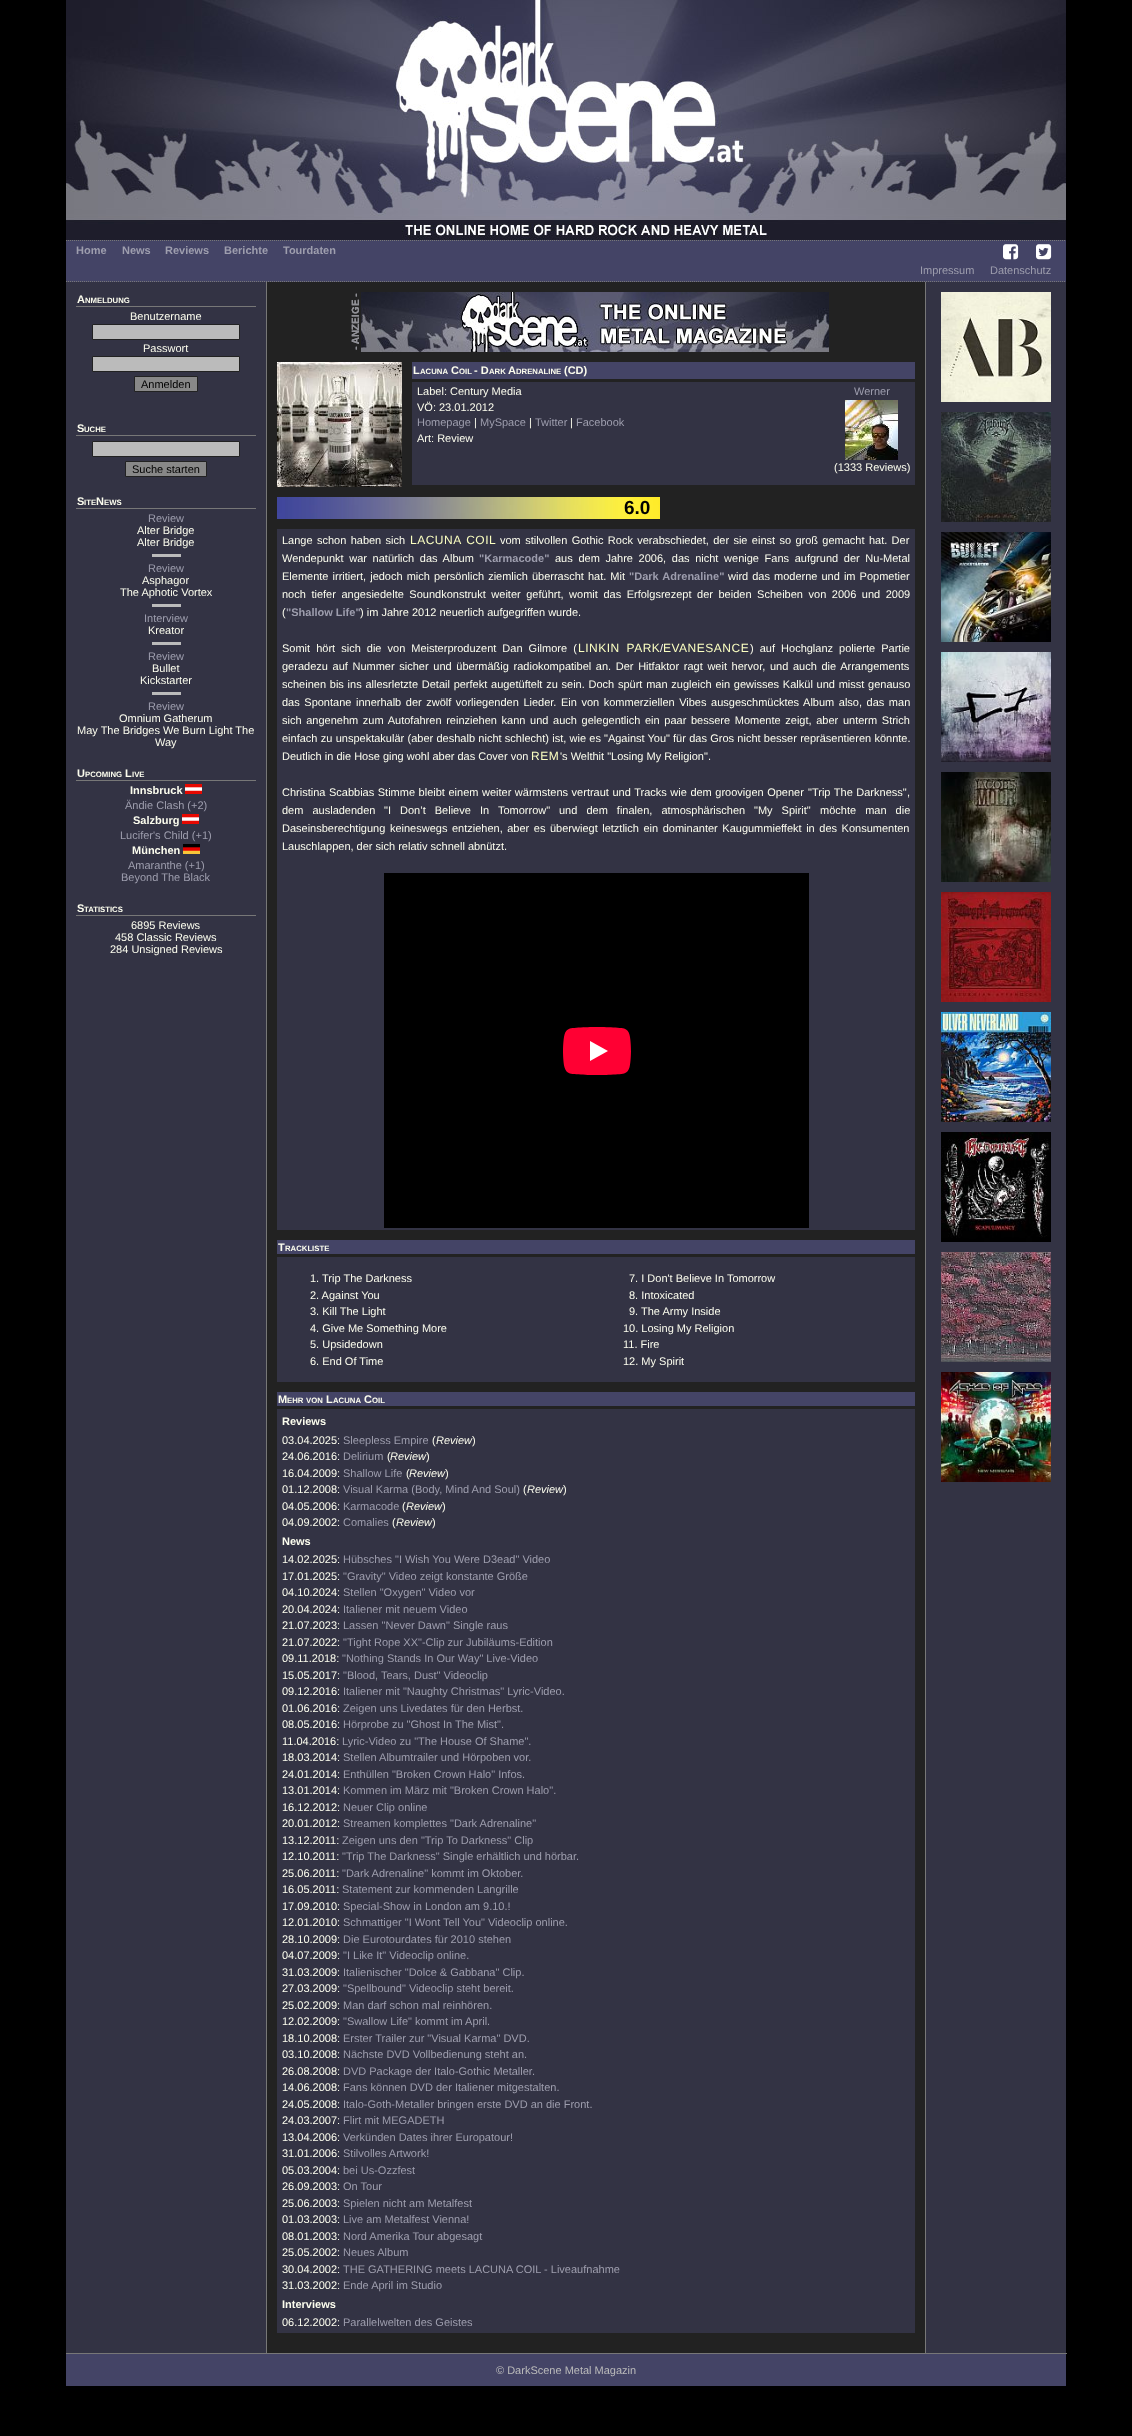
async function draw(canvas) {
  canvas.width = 1132;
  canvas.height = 2436;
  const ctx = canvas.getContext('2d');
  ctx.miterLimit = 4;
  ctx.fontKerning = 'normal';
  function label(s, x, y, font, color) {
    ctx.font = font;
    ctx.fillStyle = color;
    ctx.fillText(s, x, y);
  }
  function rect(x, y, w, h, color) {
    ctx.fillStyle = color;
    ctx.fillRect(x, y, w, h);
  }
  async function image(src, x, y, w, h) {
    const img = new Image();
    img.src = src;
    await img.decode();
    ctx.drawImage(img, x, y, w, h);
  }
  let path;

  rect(0, 0, 1132, 2436, '#000');
  await image('assets/img1.png', 66, 0, 1000, 240);
  rect(66, 240, 1000, 42, '#446');
  path = new Path2D('M66 240.5H1066');
  ctx.strokeStyle = '#777';
  ctx.setLineDash([1, 1]);
  ctx.stroke(path);
  path = new Path2D('M66 281.5H1066');
  ctx.stroke(path);
  label('Home', 76, 254, 'bold 11px Liberation Sans', '#9e9eae');
  label('News', 122, 254, 'bold 11px Liberation Sans', '#9e9eae');
  label('Reviews', 165, 254, 'bold 11px Liberation Sans', '#9e9eae');
  label('Berichte', 224, 254, 'bold 11px Liberation Sans', '#9e9eae');
  label('Tourdaten', 283, 254, 'bold 11px Liberation Sans', '#9e9eae');
  await image('assets/img2.png', 1003, 244, 16, 16);
  await image('assets/img3.png', 1036, 244, 16, 16);
  label('Impressum', 920, 274, '11px Liberation Sans', '#9e9eae');
  label('Datenschutz', 990, 274, '11px Liberation Sans', '#9e9eae');
  rect(66, 282, 200, 2071, '#334');
  rect(76, 306, 180, 1, '#777');
  label('A', 77, 303, 'bold 11px Liberation Sans', '#fcfdee');
  label('NMELDUNG', 85, 303, 'bold 7.75px Liberation Sans', '#fcfdee');
  label('Benutzername', 130, 320, '11px Liberation Sans', '#fcfdee');
  ctx.fillStyle = '#bbb';
  ctx.beginPath();
  ctx.rect(92.5, 324.5, 147, 15);
  ctx.fill();
  ctx.strokeStyle = '#222';
  ctx.setLineDash([]);
  ctx.stroke();
  label('Passwort', 143, 352, '11px Liberation Sans', '#fcfdee');
  ctx.fillStyle = '#bbb';
  ctx.beginPath();
  ctx.rect(92.5, 356.5, 147, 15);
  ctx.fill();
  ctx.stroke();
  ctx.fillStyle = '#888';
  ctx.beginPath();
  ctx.rect(134.5, 376.5, 63, 15);
  ctx.fill();
  ctx.stroke();
  label('Anmelden', 141, 388, '11px Liberation Sans', '#000');
  rect(76, 435, 180, 1, '#777');
  label('S', 77, 432, 'bold 11px Liberation Sans', '#fcfdee');
  label('UCHE', 84, 432, 'bold 7.75px Liberation Sans', '#fcfdee');
  ctx.fillStyle = '#bbb';
  ctx.beginPath();
  ctx.rect(92.5, 441.5, 147, 15);
  ctx.fill();
  ctx.stroke();
  ctx.fillStyle = '#888';
  ctx.beginPath();
  ctx.rect(125.5, 461.5, 81, 15);
  ctx.fill();
  ctx.stroke();
  label('Suche starten', 132, 473, '11px Liberation Sans', '#000');
  rect(76, 508, 180, 1, '#777');
  label('S', 77, 505, 'bold 11px Liberation Sans', '#fcfdee');
  label('ITE', 84, 505, 'bold 7.75px Liberation Sans', '#fcfdee');
  label('N', 96, 505, 'bold 11px Liberation Sans', '#fcfdee');
  label('EWS', 104, 505, 'bold 7.75px Liberation Sans', '#fcfdee');
  label('Review', 148, 522, '11px Liberation Sans', '#9e9eae');
  label('Alter Bridge', 137, 534, '11px Liberation Sans', '#fcfdee');
  label('Alter Bridge', 137, 546, '11px Liberation Sans', '#fcfdee');
  rect(152, 554, 29, 3, '#bbb');
  label('Review', 148, 572, '11px Liberation Sans', '#9e9eae');
  label('Asphagor', 142, 584, '11px Liberation Sans', '#fcfdee');
  label('The Aphotic Vortex', 120, 596, '11px Liberation Sans', '#fcfdee');
  rect(152, 604, 29, 3, '#bbb');
  label('Interview', 144, 622, '11px Liberation Sans', '#9e9eae');
  label('Kreator', 148, 634, '11px Liberation Sans', '#fcfdee');
  rect(152, 642, 29, 3, '#bbb');
  label('Review', 148, 660, '11px Liberation Sans', '#9e9eae');
  label('Bullet', 152, 672, '11px Liberation Sans', '#fcfdee');
  label('Kickstarter', 140, 684, '11px Liberation Sans', '#fcfdee');
  rect(152, 692, 29, 3, '#bbb');
  label('Review', 148, 710, '11px Liberation Sans', '#9e9eae');
  label('Omnium Gatherum', 119, 722, '11px Liberation Sans', '#fcfdee');
  label('May The Bridges We Burn Light The', 77, 734, '11px Liberation Sans', '#fcfdee');
  label('Way', 155, 746, '11px Liberation Sans', '#fcfdee');
  rect(76, 780, 180, 1, '#777');
  label('U', 77, 777, 'bold 11px Liberation Sans', '#fcfdee');
  label('PCOMING', 85, 777, 'bold 7.75px Liberation Sans', '#fcfdee');
  label('L', 125, 777, 'bold 11px Liberation Sans', '#fcfdee');
  label('IVE', 132, 777, 'bold 7.75px Liberation Sans', '#fcfdee');
  label('Innsbruck', 130, 794, 'bold 11px Liberation Sans', '#fcfdee');
  await image('assets/img4.png', 185, 784, 17, 10);
  label('Ändie Clash (+2)', 125, 809, '11px Liberation Sans', '#9e9eae');
  label('Salzburg', 133, 824, 'bold 11px Liberation Sans', '#fcfdee');
  await image('assets/img4.png', 182, 814, 17, 10);
  label('Lucifer\'s Child (+1)', 120, 839, '11px Liberation Sans', '#9e9eae');
  label('München', 132, 854, 'bold 11px Liberation Sans', '#fcfdee');
  await image('assets/img5.png', 183, 844, 17, 10);
  label('Amaranthe (+1)', 128, 869, '11px Liberation Sans', '#9e9eae');
  label('Beyond The Black', 121, 881, '11px Liberation Sans', '#9e9eae');
  rect(76, 915, 180, 1, '#777');
  label('S', 77, 912, 'bold 11px Liberation Sans', '#fcfdee');
  label('TATISTICS', 84, 912, 'bold 7.75px Liberation Sans', '#fcfdee');
  label('6895 Reviews', 131, 929, '11px Liberation Sans', '#fcfdee');
  label('458 Classic Reviews', 115, 941, '11px Liberation Sans', '#fcfdee');
  label('284 Unsigned Reviews', 110, 953, '11px Liberation Sans', '#fcfdee');
  rect(267, 282, 658, 2071, '#222');
  rect(66, 2353, 1001, 1, '#777');
  rect(266, 282, 1, 2072, '#777');
  await image('assets/img6.png', 351, 293, 8, 57);
  await image('assets/img7.png', 361, 292, 468, 60);
  await image('assets/img8.png', 277, 362, 125, 125);
  rect(412, 362, 503, 17, '#446');
  label('L', 413, 374, 'bold 11px Liberation Sans', '#fcfdee');
  label('ACUNA', 420, 374, 'bold 7.75px Liberation Sans', '#fcfdee');
  label('C', 451, 374, 'bold 11px Liberation Sans', '#fcfdee');
  label('OIL', 459, 374, 'bold 7.75px Liberation Sans', '#fcfdee');
  label('- D', 474, 374, 'bold 11px Liberation Sans', '#fcfdee');
  label('ARK', 489, 374, 'bold 7.75px Liberation Sans', '#fcfdee');
  label('A', 508, 374, 'bold 11px Liberation Sans', '#fcfdee');
  label('DRENALINE', 516, 374, 'bold 7.75px Liberation Sans', '#fcfdee');
  label('(CD)', 564, 374, 'bold 11px Liberation Sans', '#fcfdee');
  rect(412, 382, 503, 103, '#334');
  label('Label: Century Media', 417, 395, '11px Liberation Sans', '#fcfdee');
  label('VÖ: 23.01.2012', 417, 411, '11px Liberation Sans', '#fcfdee');
  label('Homepage', 417, 426, '11px Liberation Sans', '#9e9eae');
  label('|', 474, 426, '11px Liberation Sans', '#fcfdee');
  label('MySpace', 480, 426, '11px Liberation Sans', '#9e9eae');
  label('|', 529, 426, '11px Liberation Sans', '#fcfdee');
  label('Twitter', 535, 426, '11px Liberation Sans', '#9e9eae');
  label('|', 570, 426, '11px Liberation Sans', '#fcfdee');
  label('Facebook', 576, 426, '11px Liberation Sans', '#9e9eae');
  label('Art: Review', 417, 442, '11px Liberation Sans', '#fcfdee');
  label('Werner', 854, 395, '11px Liberation Sans', '#9e9eae');
  await image('assets/img9.png', 845, 400, 53, 60);
  label('(1333 Reviews)', 834, 471, '11px Liberation Sans', '#fcfdee');
  await image('assets/img10.png', 277, 497, 383, 22);
  label('6.0', 624, 514, 'bold 19px Liberation Sans', '#000');
  rect(277, 529, 638, 701, '#334');
  ctx.wordSpacing = '1.3px';
  label('Lange schon haben sich', 282, 544, '11px Liberation Sans', '#fcfdee');
  ctx.letterSpacing = '0.5px';
  label('LACUNA COIL', 410, 544, '12px Liberation Sans', '#fbffc1');
  ctx.letterSpacing = '0px';
  label('vom stilvollen Gothic Rock verabschiedet, der sie einst so groß gemacht hat. Der', 500, 544, '11px Liberation Sans', '#fcfdee');
  ctx.wordSpacing = '2.6px';
  label('Wendepunkt war natürlich das Album', 282, 562, '11px Liberation Sans', '#fcfdee');
  ctx.wordSpacing = '0px';
  label('"Karmacode"', 479, 562, 'bold 11px Liberation Sans', '#9e9eae');
  ctx.wordSpacing = '2.6px';
  label('aus dem Jahre 2006, das nicht wenige Fans aufgrund der Nu-Metal', 555, 562, '11px Liberation Sans', '#fcfdee');
  ctx.wordSpacing = '1px';
  label('Elemente irritiert, jedoch mich persönlich ziemlich überrascht hat. Mit', 282, 580, '11px Liberation Sans', '#fcfdee');
  label('"Dark Adrenaline"', 629, 580, 'bold 11px Liberation Sans', '#9e9eae');
  label('wird das moderne und im Popmetier', 728, 580, '11px Liberation Sans', '#fcfdee');
  ctx.wordSpacing = '2.5px';
  label('noch tiefer angesiedelte Soundkonstrukt weiter geführt, womit das Erfolgsrezept der beiden Scheiben von 2006 und 2009', 282, 598, '11px Liberation Sans', '#fcfdee');
  ctx.wordSpacing = '0px';
  label('(', 282, 616, '11px Liberation Sans', '#fcfdee');
  label('"Shallow Life"', 286, 616, 'bold 11px Liberation Sans', '#9e9eae');
  label(') im Jahre 2012 neuerlich aufgegriffen wurde.', 360, 616, '11px Liberation Sans', '#fcfdee');
  ctx.wordSpacing = '3px';
  label('Somit hört sich die von Meisterproduzent Dan Gilmore (', 282, 652, '11px Liberation Sans', '#fcfdee');
  ctx.letterSpacing = '0.5px';
  label('LINKIN PARK', 578, 652, '12px Liberation Sans', '#fbffc1');
  ctx.letterSpacing = '0px';
  ctx.wordSpacing = '0px';
  label('/', 660, 652, '11px Liberation Sans', '#fcfdee');
  ctx.letterSpacing = '0.5px';
  label('EVANESANCE', 663, 652, '12px Liberation Sans', '#fbffc1');
  ctx.letterSpacing = '0px';
  ctx.wordSpacing = '3px';
  label(') auf Hochglanz polierte Partie', 750, 652, '11px Liberation Sans', '#fcfdee');
  ctx.wordSpacing = '1.6px';
  label('geradezu auf Nummer sicher und übermäßig radiokompatibel an. Der Hitfaktor ragt weit hervor, und auch die Arrangements', 282, 670, '11px Liberation Sans', '#fcfdee');
  ctx.wordSpacing = '0.7px';
  label('scheinen bis ins allesrletzte Detail perfekt augetüftelt zu sein. Doch spürt man zugleich ein gewisses Kalkül und misst genauso', 282, 688, '11px Liberation Sans', '#fcfdee');
  ctx.wordSpacing = '1.5px';
  label('das Spontane innerhalb der zwölf vorliegenden Lieder. Ein von kommerziellen Vibes ausgeschmücktes Album also, das man', 282, 706, '11px Liberation Sans', '#fcfdee');
  ctx.wordSpacing = '1.6px';
  label('sich angenehm zum Autofahren reinziehen kann und auch gelegentlich ein paar bessere Momente zeigt, aber unterm Strich', 282, 724, '11px Liberation Sans', '#fcfdee');
  ctx.wordSpacing = '0.25px';
  label('einfach zu unspektakulär (aber deshalb nicht schlecht) ist, wie es', 282, 742, '11px Liberation Sans', '#fcfdee');
  ctx.wordSpacing = '0px';
  label('"Against You"', 604, 742, '11px Liberation Sans', '#fcfdee');
  ctx.wordSpacing = '0.25px';
  label('für das Gros nicht besser repräsentieren könnte.', 673, 742, '11px Liberation Sans', '#fcfdee');
  ctx.wordSpacing = '0px';
  label('Deutlich in die Hose ging wohl aber das Cover von', 282, 760, '11px Liberation Sans', '#fcfdee');
  ctx.letterSpacing = '0.5px';
  label('REM', 531, 760, '12px Liberation Sans', '#fbffc1');
  ctx.letterSpacing = '0px';
  label('\'s Welthit "Losing My Religion".', 560, 760, '11px Liberation Sans', '#fcfdee');
  ctx.wordSpacing = '0.5px';
  label('Christina Scabbias Stimme bleibt einem weiter wärmstens vertraut und Tracks wie dem groovigen Opener', 282, 796, '11px Liberation Sans', '#fcfdee');
  label('"Trip The Darkness"', 808, 796, '11px Liberation Sans', '#fcfdee');
  ctx.wordSpacing = '0px';
  label(',', 907, 796, '11px Liberation Sans', '#fcfdee');
  ctx.wordSpacing = '6px';
  label('dem ausladenden', 282, 814, '11px Liberation Sans', '#fcfdee');
  label('"I Don’t Believe In Tomorrow"', 384, 814, '11px Liberation Sans', '#fcfdee');
  label('und dem finalen, atmosphärischen', 559, 814, '11px Liberation Sans', '#fcfdee');
  label('"My Spirit"', 754, 814, '11px Liberation Sans', '#fcfdee');
  label('möchte man die', 820, 814, '11px Liberation Sans', '#fcfdee');
  ctx.wordSpacing = '1.5px';
  label('Daseinsberechtigung keineswegs entziehen, aber es überwiegt letztlich ein dominanter Kaugummieffekt in des Konsumenten', 282, 832, '11px Liberation Sans', '#fcfdee');
  ctx.wordSpacing = '0px';
  label('Lauschlappen, der sich relativ schnell abnützt.', 282, 850, '11px Liberation Sans', '#fcfdee');
  await image('assets/img11.png', 384, 873, 425, 355);
  rect(277, 1240, 638, 14, '#446');
  label('T', 278, 1251, 'bold 11px Liberation Sans', '#fcfdee');
  label('RACKLISTE', 285, 1251, 'bold 7.75px Liberation Sans', '#fcfdee');
  rect(277, 1257, 638, 125, '#334');
  label('1. Trip The Darkness', 310, 1282, '11px Liberation Sans', '#fcfdee');
  label('2. Against You', 310, 1299, '11px Liberation Sans', '#fcfdee');
  label('3. Kill The Light', 310, 1315, '11px Liberation Sans', '#fcfdee');
  label('4. Give Me Something More', 310, 1332, '11px Liberation Sans', '#fcfdee');
  label('5. Upsidedown', 310, 1348, '11px Liberation Sans', '#fcfdee');
  label('6. End Of Time', 310, 1365, '11px Liberation Sans', '#fcfdee');
  label('7. I Don\'t Believe In Tomorrow', 629, 1282, '11px Liberation Sans', '#fcfdee');
  label('8. Intoxicated', 629, 1299, '11px Liberation Sans', '#fcfdee');
  label('9. The Army Inside', 629, 1315, '11px Liberation Sans', '#fcfdee');
  label('10. Losing My Religion', 623, 1332, '11px Liberation Sans', '#fcfdee');
  label('11. Fire', 623, 1348, '11px Liberation Sans', '#fcfdee');
  label('12. My Spirit', 623, 1365, '11px Liberation Sans', '#fcfdee');
  rect(277, 1392, 638, 14, '#446');
  label('M', 278, 1403, 'bold 11px Liberation Sans', '#fcfdee');
  label('EHR', 287, 1403, 'bold 7.75px Liberation Sans', '#fcfdee');
  label('VON', 306, 1403, 'bold 7.75px Liberation Sans', '#fcfdee');
  label('L', 326, 1403, 'bold 11px Liberation Sans', '#fcfdee');
  label('ACUNA', 333, 1403, 'bold 7.75px Liberation Sans', '#fcfdee');
  label('C', 364, 1403, 'bold 11px Liberation Sans', '#fcfdee');
  label('OIL', 372, 1403, 'bold 7.75px Liberation Sans', '#fcfdee');
  rect(277, 1409, 638, 924, '#334');
  label('Reviews', 282, 1425, 'bold 11px Liberation Sans', '#fcfdee');
  label('03.04.2025:', 282, 1444, '11px Liberation Sans', '#fcfdee');
  label('Sleepless Empire', 343, 1444, '11px Liberation Sans', '#9e9eae');
  label('(', 432, 1444, '11px Liberation Sans', '#fcfdee');
  label('Review', 436, 1444, 'italic 11px Liberation Sans', '#fcfdee');
  label(')', 472, 1444, '11px Liberation Sans', '#fcfdee');
  label('24.06.2016:', 282, 1460, '11px Liberation Sans', '#fcfdee');
  label('Delirium', 343, 1460, '11px Liberation Sans', '#9e9eae');
  label('(', 387, 1460, '11px Liberation Sans', '#fcfdee');
  label('Review', 390, 1460, 'italic 11px Liberation Sans', '#fcfdee');
  label(')', 426, 1460, '11px Liberation Sans', '#fcfdee');
  label('16.04.2009:', 282, 1477, '11px Liberation Sans', '#fcfdee');
  label('Shallow Life', 343, 1477, '11px Liberation Sans', '#9e9eae');
  label('(', 406, 1477, '11px Liberation Sans', '#fcfdee');
  label('Review', 409, 1477, 'italic 11px Liberation Sans', '#fcfdee');
  label(')', 445, 1477, '11px Liberation Sans', '#fcfdee');
  label('01.12.2008:', 282, 1493, '11px Liberation Sans', '#fcfdee');
  label('Visual Karma (Body, Mind And Soul)', 343, 1493, '11px Liberation Sans', '#9e9eae');
  label('(', 523, 1493, '11px Liberation Sans', '#fcfdee');
  label('Review', 527, 1493, 'italic 11px Liberation Sans', '#fcfdee');
  label(')', 563, 1493, '11px Liberation Sans', '#fcfdee');
  label('04.05.2006:', 282, 1510, '11px Liberation Sans', '#fcfdee');
  label('Karmacode', 343, 1510, '11px Liberation Sans', '#9e9eae');
  label('(', 402, 1510, '11px Liberation Sans', '#fcfdee');
  label('Review', 406, 1510, 'italic 11px Liberation Sans', '#fcfdee');
  label(')', 442, 1510, '11px Liberation Sans', '#fcfdee');
  label('04.09.2002:', 282, 1526, '11px Liberation Sans', '#fcfdee');
  label('Comalies', 343, 1526, '11px Liberation Sans', '#9e9eae');
  label('(', 392, 1526, '11px Liberation Sans', '#fcfdee');
  label('Review', 396, 1526, 'italic 11px Liberation Sans', '#fcfdee');
  label(')', 432, 1526, '11px Liberation Sans', '#fcfdee');
  label('News', 282, 1545, 'bold 11px Liberation Sans', '#fcfdee');
  label('14.02.2025:', 282, 1563, '11px Liberation Sans', '#fcfdee');
  label('Hübsches "I Wish You Were D3ead" Video', 343, 1563, '11px Liberation Sans', '#9e9eae');
  label('17.01.2025:', 282, 1580, '11px Liberation Sans', '#fcfdee');
  label('"Gravity" Video zeigt konstante Größe', 343, 1580, '11px Liberation Sans', '#9e9eae');
  label('04.10.2024:', 282, 1596, '11px Liberation Sans', '#fcfdee');
  label('Stellen "Oxygen" Video vor', 343, 1596, '11px Liberation Sans', '#9e9eae');
  label('20.04.2024:', 282, 1613, '11px Liberation Sans', '#fcfdee');
  label('Italiener mit neuem Video', 343, 1613, '11px Liberation Sans', '#9e9eae');
  label('21.07.2023:', 282, 1629, '11px Liberation Sans', '#fcfdee');
  label('Lassen "Never Dawn" Single raus', 343, 1629, '11px Liberation Sans', '#9e9eae');
  label('21.07.2022:', 282, 1646, '11px Liberation Sans', '#fcfdee');
  label('"Tight Rope XX"-Clip zur Jubiläums-Edition', 343, 1646, '11px Liberation Sans', '#9e9eae');
  label('09.11.2018:', 282, 1662, '11px Liberation Sans', '#fcfdee');
  label('"Nothing Stands In Our Way" Live-Video', 342, 1662, '11px Liberation Sans', '#9e9eae');
  label('15.05.2017:', 282, 1679, '11px Liberation Sans', '#fcfdee');
  label('"Blood, Tears, Dust" Videoclip', 343, 1679, '11px Liberation Sans', '#9e9eae');
  label('09.12.2016:', 282, 1695, '11px Liberation Sans', '#fcfdee');
  label('Italiener mit "Naughty Christmas" Lyric-Video.', 343, 1695, '11px Liberation Sans', '#9e9eae');
  label('01.06.2016:', 282, 1712, '11px Liberation Sans', '#fcfdee');
  label('Zeigen uns Livedates für den Herbst.', 343, 1712, '11px Liberation Sans', '#9e9eae');
  label('08.05.2016:', 282, 1728, '11px Liberation Sans', '#fcfdee');
  label('Hörprobe zu "Ghost In The Mist".', 343, 1728, '11px Liberation Sans', '#9e9eae');
  label('11.04.2016:', 282, 1745, '11px Liberation Sans', '#fcfdee');
  label('Lyric-Video zu "The House Of Shame".', 342, 1745, '11px Liberation Sans', '#9e9eae');
  label('18.03.2014:', 282, 1761, '11px Liberation Sans', '#fcfdee');
  label('Stellen Albumtrailer und Hörpoben vor.', 343, 1761, '11px Liberation Sans', '#9e9eae');
  label('24.01.2014:', 282, 1778, '11px Liberation Sans', '#fcfdee');
  label('Enthüllen "Broken Crown Halo" Infos.', 343, 1778, '11px Liberation Sans', '#9e9eae');
  label('13.01.2014:', 282, 1794, '11px Liberation Sans', '#fcfdee');
  label('Kommen im März mit "Broken Crown Halo".', 343, 1794, '11px Liberation Sans', '#9e9eae');
  label('16.12.2012:', 282, 1811, '11px Liberation Sans', '#fcfdee');
  label('Neuer Clip online', 343, 1811, '11px Liberation Sans', '#9e9eae');
  label('20.01.2012:', 282, 1827, '11px Liberation Sans', '#fcfdee');
  label('Streamen komplettes "Dark Adrenaline"', 343, 1827, '11px Liberation Sans', '#9e9eae');
  label('13.12.2011:', 282, 1844, '11px Liberation Sans', '#fcfdee');
  label('Zeigen uns den "Trip To Darkness" Clip', 342, 1844, '11px Liberation Sans', '#9e9eae');
  label('12.10.2011:', 282, 1860, '11px Liberation Sans', '#fcfdee');
  label('"Trip The Darkness" Single erhältlich und hörbar.', 342, 1860, '11px Liberation Sans', '#9e9eae');
  label('25.06.2011:', 282, 1877, '11px Liberation Sans', '#fcfdee');
  label('"Dark Adrenaline" kommt im Oktober.', 342, 1877, '11px Liberation Sans', '#9e9eae');
  label('16.05.2011:', 282, 1893, '11px Liberation Sans', '#fcfdee');
  label('Statement zur kommenden Langrille', 342, 1893, '11px Liberation Sans', '#9e9eae');
  label('17.09.2010:', 282, 1910, '11px Liberation Sans', '#fcfdee');
  label('Special-Show in London am 9.10.!', 343, 1910, '11px Liberation Sans', '#9e9eae');
  label('12.01.2010:', 282, 1926, '11px Liberation Sans', '#fcfdee');
  label('Schmattiger "I Wont Tell You" Videoclip online.', 343, 1926, '11px Liberation Sans', '#9e9eae');
  label('28.10.2009:', 282, 1943, '11px Liberation Sans', '#fcfdee');
  label('Die Eurotourdates für 2010 stehen', 343, 1943, '11px Liberation Sans', '#9e9eae');
  label('04.07.2009:', 282, 1959, '11px Liberation Sans', '#fcfdee');
  label('"I Like It" Videoclip online.', 343, 1959, '11px Liberation Sans', '#9e9eae');
  label('31.03.2009:', 282, 1976, '11px Liberation Sans', '#fcfdee');
  label('Italienischer "Dolce & Gabbana" Clip.', 343, 1976, '11px Liberation Sans', '#9e9eae');
  label('27.03.2009:', 282, 1992, '11px Liberation Sans', '#fcfdee');
  label('"Spellbound" Videoclip steht bereit.', 343, 1992, '11px Liberation Sans', '#9e9eae');
  label('25.02.2009:', 282, 2009, '11px Liberation Sans', '#fcfdee');
  label('Man darf schon mal reinhören.', 343, 2009, '11px Liberation Sans', '#9e9eae');
  label('12.02.2009:', 282, 2025, '11px Liberation Sans', '#fcfdee');
  label('"Swallow Life" kommt im April.', 343, 2025, '11px Liberation Sans', '#9e9eae');
  label('18.10.2008:', 282, 2042, '11px Liberation Sans', '#fcfdee');
  label('Erster Trailer zur "Visual Karma" DVD.', 343, 2042, '11px Liberation Sans', '#9e9eae');
  label('03.10.2008:', 282, 2058, '11px Liberation Sans', '#fcfdee');
  label('Nächste DVD Vollbedienung steht an.', 343, 2058, '11px Liberation Sans', '#9e9eae');
  label('26.08.2008:', 282, 2075, '11px Liberation Sans', '#fcfdee');
  label('DVD Package der Italo-Gothic Metaller.', 343, 2075, '11px Liberation Sans', '#9e9eae');
  label('14.06.2008:', 282, 2091, '11px Liberation Sans', '#fcfdee');
  label('Fans können DVD der Italiener mitgestalten.', 343, 2091, '11px Liberation Sans', '#9e9eae');
  label('24.05.2008:', 282, 2108, '11px Liberation Sans', '#fcfdee');
  label('Italo-Goth-Metaller bringen erste DVD an die Front.', 343, 2108, '11px Liberation Sans', '#9e9eae');
  label('24.03.2007:', 282, 2124, '11px Liberation Sans', '#fcfdee');
  label('Flirt mit MEGADETH', 343, 2124, '11px Liberation Sans', '#9e9eae');
  label('13.04.2006:', 282, 2141, '11px Liberation Sans', '#fcfdee');
  label('Verkünden Dates ihrer Europatour!', 343, 2141, '11px Liberation Sans', '#9e9eae');
  label('31.01.2006:', 282, 2157, '11px Liberation Sans', '#fcfdee');
  label('Stilvolles Artwork!', 343, 2157, '11px Liberation Sans', '#9e9eae');
  label('05.03.2004:', 282, 2174, '11px Liberation Sans', '#fcfdee');
  label('bei Us-Ozzfest', 343, 2174, '11px Liberation Sans', '#9e9eae');
  label('26.09.2003:', 282, 2190, '11px Liberation Sans', '#fcfdee');
  label('On Tour', 343, 2190, '11px Liberation Sans', '#9e9eae');
  label('25.06.2003:', 282, 2207, '11px Liberation Sans', '#fcfdee');
  label('Spielen nicht am Metalfest', 343, 2207, '11px Liberation Sans', '#9e9eae');
  label('01.03.2003:', 282, 2223, '11px Liberation Sans', '#fcfdee');
  label('Live am Metalfest Vienna!', 343, 2223, '11px Liberation Sans', '#9e9eae');
  label('08.01.2003:', 282, 2240, '11px Liberation Sans', '#fcfdee');
  label('Nord Amerika Tour abgesagt', 343, 2240, '11px Liberation Sans', '#9e9eae');
  label('25.05.2002:', 282, 2256, '11px Liberation Sans', '#fcfdee');
  label('Neues Album', 343, 2256, '11px Liberation Sans', '#9e9eae');
  label('30.04.2002:', 282, 2273, '11px Liberation Sans', '#fcfdee');
  label('THE GATHERING meets LACUNA COIL - Liveaufnahme', 343, 2273, '11px Liberation Sans', '#9e9eae');
  label('31.03.2002:', 282, 2289, '11px Liberation Sans', '#fcfdee');
  label('Ende April im Studio', 343, 2289, '11px Liberation Sans', '#9e9eae');
  label('Interviews', 282, 2308, 'bold 11px Liberation Sans', '#fcfdee');
  label('06.12.2002:', 282, 2326, '11px Liberation Sans', '#fcfdee');
  label('Parallelwelten des Geistes', 343, 2326, '11px Liberation Sans', '#9e9eae');
  rect(926, 282, 140, 2071, '#334');
  rect(925, 282, 1, 2072, '#777');
  await image('assets/img12.png', 941, 292, 110, 110);
  await image('assets/img13.png', 941, 412, 110, 110);
  await image('assets/img14.png', 941, 532, 110, 110);
  await image('assets/img15.png', 941, 652, 110, 110);
  await image('assets/img16.png', 941, 772, 110, 110);
  await image('assets/img17.png', 941, 892, 110, 110);
  await image('assets/img18.png', 941, 1012, 110, 110);
  await image('assets/img19.png', 941, 1132, 110, 110);
  await image('assets/img20.png', 941, 1252, 110, 110);
  await image('assets/img21.png', 941, 1372, 110, 110);
  rect(66, 2354, 1000, 32, '#446');
  label('© DarkScene Metal Magazin', 496, 2374, '11px Liberation Sans', '#bbb');
}

draw(document.querySelector('canvas'));
